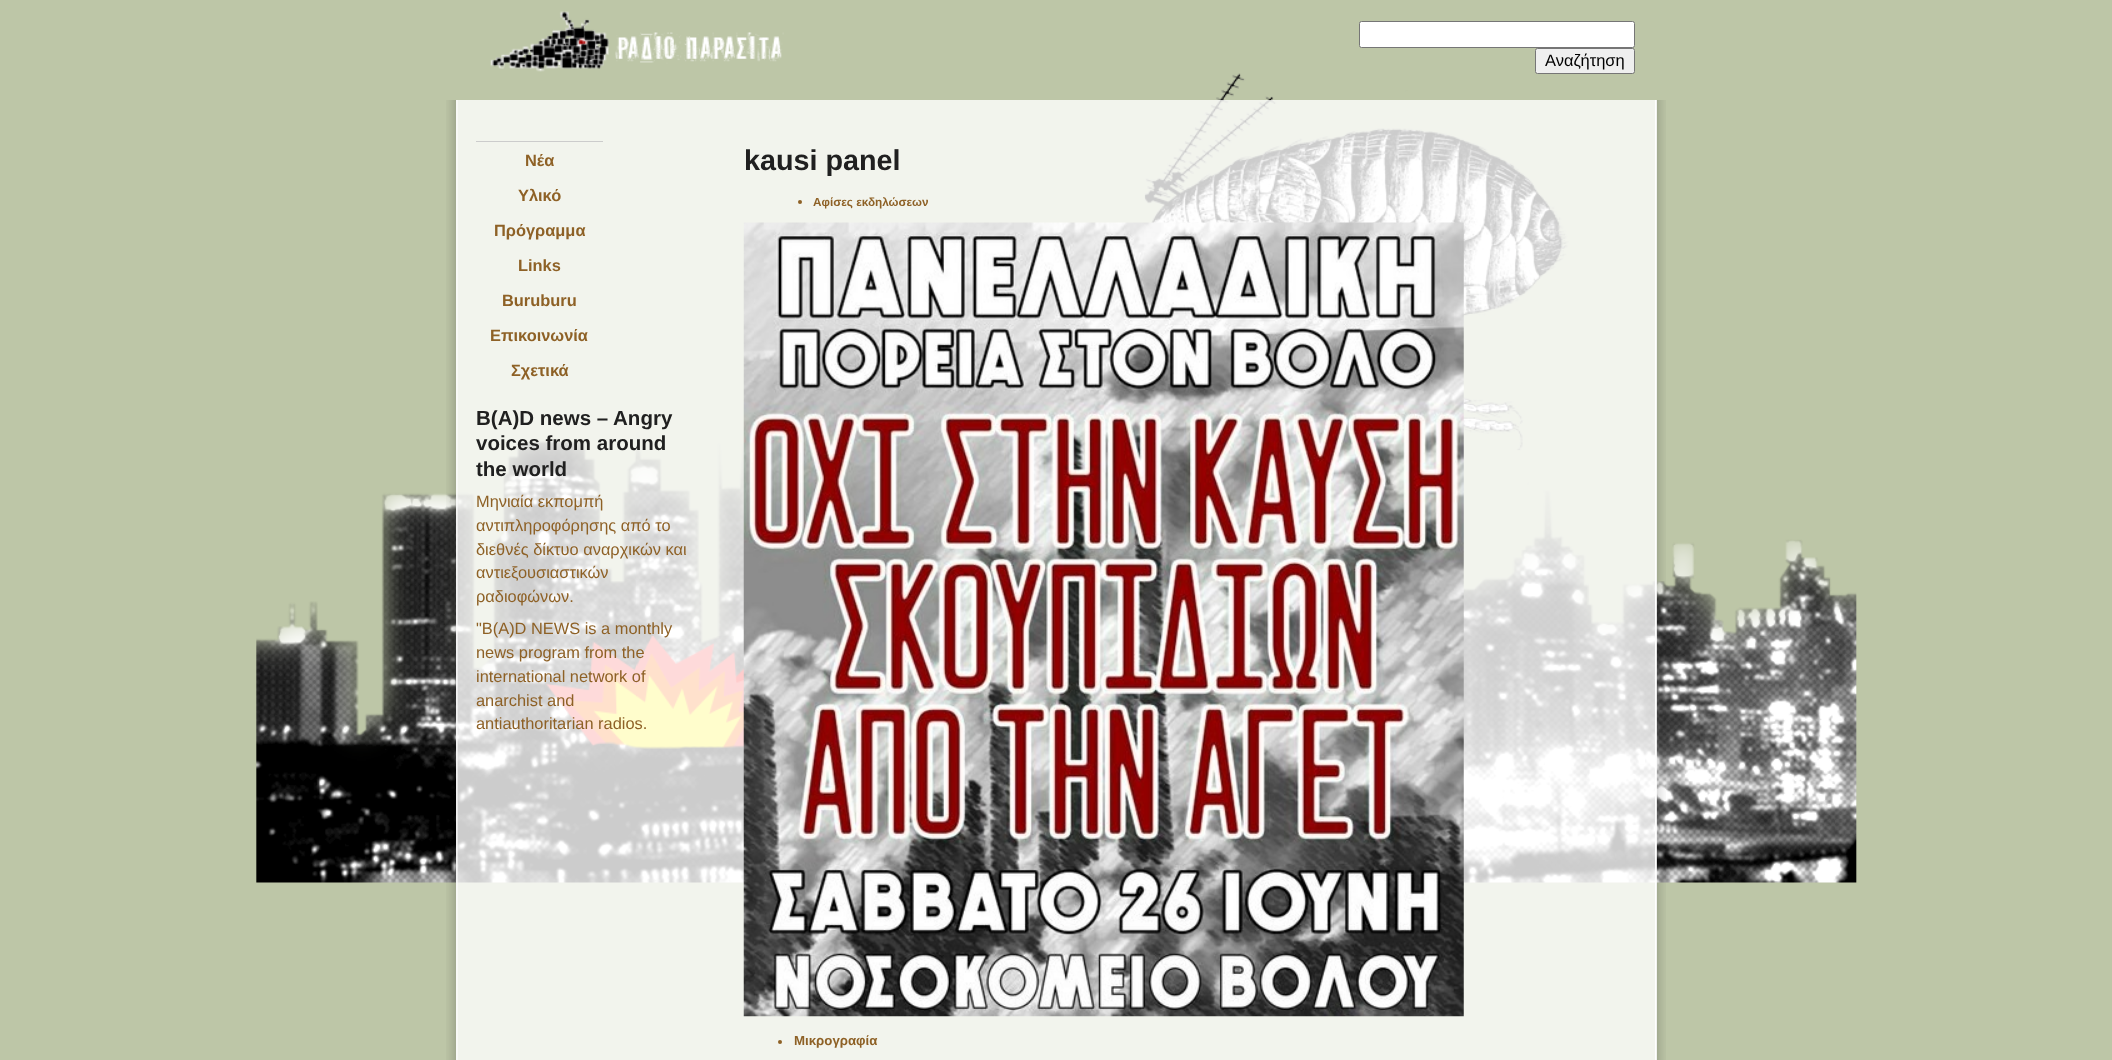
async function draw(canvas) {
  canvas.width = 2112;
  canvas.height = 1060;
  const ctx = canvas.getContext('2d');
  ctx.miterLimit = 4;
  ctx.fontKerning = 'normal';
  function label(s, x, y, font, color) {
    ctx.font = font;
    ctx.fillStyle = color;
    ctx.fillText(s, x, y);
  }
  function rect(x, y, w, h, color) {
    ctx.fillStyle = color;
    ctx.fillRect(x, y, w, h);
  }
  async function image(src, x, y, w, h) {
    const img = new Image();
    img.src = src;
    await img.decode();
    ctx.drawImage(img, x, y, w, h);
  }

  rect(0, 0, 2112, 1060, '#bdc6a7');
  await image('assets/img1.png', 256, 73, 1601, 810);
  await image('assets/img2.png', 490, 11, 294, 61);
  ctx.fillStyle = '#fff';
  ctx.beginPath();
  ctx.roundRect(1359.5, 21.5, 275, 26, 2);
  ctx.fill();
  ctx.strokeStyle = '#767676';
  ctx.stroke();
  ctx.fillStyle = '#efefef';
  ctx.beginPath();
  ctx.roundRect(1535.5, 48.5, 99, 25, 2);
  ctx.fill();
  ctx.stroke();
  label('Αναζήτηση', 1545, 66, '16.5px Liberation Sans', '#000');
  await image('assets/img3.png', 446, 100, 12, 960);
  await image('assets/img4.png', 1655, 100, 11, 960);
  rect(456, 100, 1201, 960, '#ffffffcc');
  rect(476, 141, 127, 1, '#ccc');
  label('Νέα', 525, 166, 'bold 16.4px Liberation Sans', '#8e6126');
  label('Υλικό', 518, 201, 'bold 16.4px Liberation Sans', '#8e6126');
  label('Πρόγραμμα', 494, 236, 'bold 16.4px Liberation Sans', '#8e6126');
  label('Links', 518, 271, 'bold 16.4px Liberation Sans', '#8e6126');
  label('Buruburu', 502, 306, 'bold 16.4px Liberation Sans', '#8e6126');
  label('Επικοινωνία', 490, 341, 'bold 16.4px Liberation Sans', '#8e6126');
  label('Σχετικά', 511, 376, 'bold 16.4px Liberation Sans', '#8e6126');
  label('B(A)D news – Angry', 476, 425, 'bold 20.5px Liberation Sans', '#202020');
  label('voices from around', 476, 450, 'bold 20.5px Liberation Sans', '#202020');
  label('the world', 476, 476, 'bold 20.5px Liberation Sans', '#202020');
  label('Μηνιαία εκπομπή', 476, 507, '16.4px Liberation Sans', '#8e6126');
  label('αντιπληροφόρησης από το', 476, 531, '16.4px Liberation Sans', '#8e6126');
  label('διεθνές δίκτυο αναρχικών και', 476, 555, '16.4px Liberation Sans', '#8e6126');
  label('αντιεξουσιαστικών', 476, 578, '16.4px Liberation Sans', '#8e6126');
  label('ραδιοφώνων.', 476, 602, '16.4px Liberation Sans', '#8e6126');
  label('"B(A)D NEWS is a monthly', 476, 634, '16.4px Liberation Sans', '#8e6126');
  label('news program from the', 476, 658, '16.4px Liberation Sans', '#8e6126');
  label('international network of', 476, 682, '16.4px Liberation Sans', '#8e6126');
  label('anarchist and', 476, 706, '16.4px Liberation Sans', '#8e6126');
  label('antiauthoritarian radios.', 476, 729, '16.4px Liberation Sans', '#8e6126');
  label('kausi panel', 744, 170, 'bold 28.75px Liberation Sans', '#202020');
  ctx.fillStyle = '#8e6126';
  ctx.beginPath();
  ctx.arc(800, 202, 2, 0, 2 * Math.PI);
  ctx.fill();
  label('Αφίσες εκδηλώσεων', 813, 206, 'bold 11.75px Liberation Sans', '#8e6126');
  await image('assets/img5.png', 743, 222, 721, 795);
  ctx.beginPath();
  ctx.arc(780, 1042, 2, 0, 2 * Math.PI);
  ctx.fill();
  label('Μικρογραφία', 794, 1045, 'bold 13.25px Liberation Sans', '#8e6126');
}

draw(document.querySelector('canvas'));
